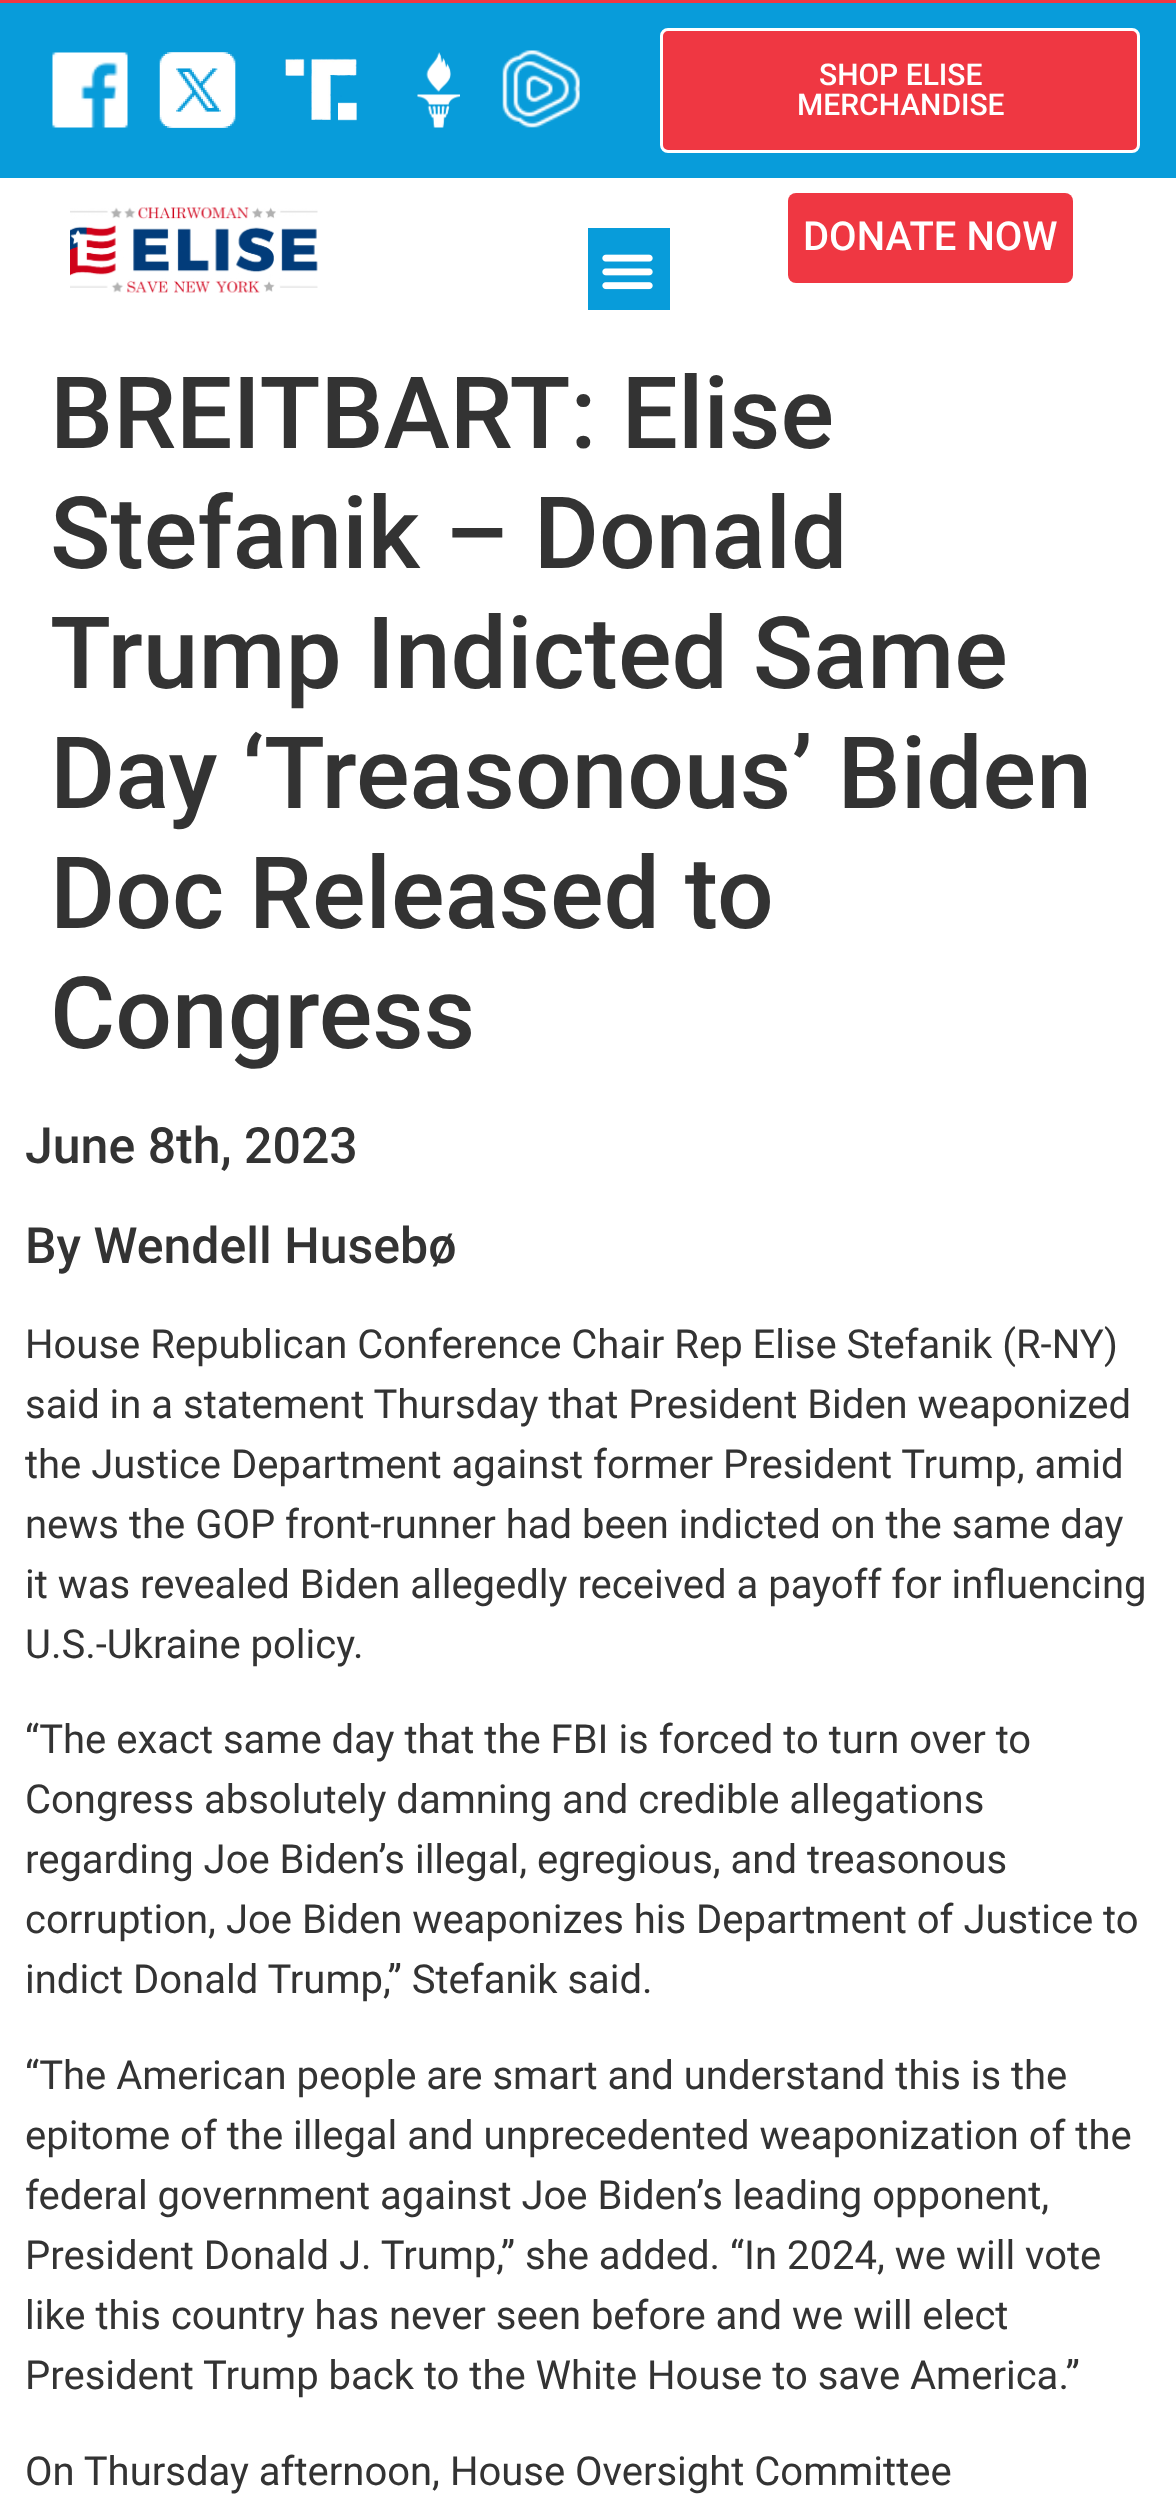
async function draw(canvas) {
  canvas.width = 1176;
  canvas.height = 2513;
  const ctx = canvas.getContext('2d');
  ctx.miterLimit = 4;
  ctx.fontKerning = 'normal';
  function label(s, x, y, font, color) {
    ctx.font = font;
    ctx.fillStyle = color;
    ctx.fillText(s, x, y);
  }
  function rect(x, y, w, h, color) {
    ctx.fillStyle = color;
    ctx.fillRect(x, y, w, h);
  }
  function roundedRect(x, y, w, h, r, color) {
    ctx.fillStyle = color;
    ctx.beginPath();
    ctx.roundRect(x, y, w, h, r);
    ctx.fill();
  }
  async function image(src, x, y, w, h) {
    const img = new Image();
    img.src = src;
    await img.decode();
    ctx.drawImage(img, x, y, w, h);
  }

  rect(0, 0, 1176, 2513, '#fff');
  rect(0, 0, 1176, 3, '#ef3742');
  rect(0, 3, 1176, 175, '#089cda');
  await image('assets/img1.png', 52, 52, 76, 76);
  await image('assets/img2.png', 159, 52, 77, 76);
  await image('assets/img3.png', 285, 58, 72, 63);
  await image('assets/img4.png', 417, 52, 43, 76);
  await image('assets/img5.png', 502, 50, 78, 78);
  ctx.fillStyle = '#ef3742';
  ctx.beginPath();
  ctx.roundRect(661.5, 29.5, 477, 122, 6.5);
  ctx.fill();
  ctx.strokeStyle = '#fff';
  ctx.lineWidth = 3;
  ctx.stroke();
  label('SHOP ELISE', 819, 85, '500 30px Roboto', '#fff');
  label('MERCHANDISE', 797, 115, '500 30px Roboto', '#fff');
  await image('assets/img6.png', 70, 207, 248, 86);
  rect(588, 228, 82, 82, '#089cda');
  await image('assets/img7.png', 602, 254, 51, 36);
  roundedRect(788, 193, 285, 90, 8, '#ef3742');
  label('DONATE NOW', 803, 250, '500 40px Roboto', '#fff');
  label('BREITBART: Elise', 50, 448, '500 100px Roboto', '#333');
  label('Stefanik – Donald', 50, 568, '500 100px Roboto', '#333');
  label('Trump Indicted Same', 50, 688, '500 100px Roboto', '#333');
  label('Day ‘Treasonous’ Biden', 50, 808, '500 100px Roboto', '#333');
  label('Doc Released to', 50, 928, '500 100px Roboto', '#333');
  label('Congress', 50, 1048, '500 100px Roboto', '#333');
  label('June 8th, 2023', 25, 1163, '500 50px Roboto', '#333');
  label('By Wendell Husebø', 25, 1263, '500 50px Roboto', '#333');
  label('House Republican Conference Chair Rep Elise Stefanik (R-NY)', 25, 1358, '40px Roboto', '#333');
  label('said in a statement Thursday that President Biden weaponized', 25, 1418, '40px Roboto', '#333');
  label('the Justice Department against former President Trump, amid', 25, 1478, '40px Roboto', '#333');
  label('news the GOP front-runner had been indicted on the same day', 25, 1538, '40px Roboto', '#333');
  label('it was revealed Biden allegedly received a payoff for influencing', 25, 1598, '40px Roboto', '#333');
  label('U.S.-Ukraine policy.', 25, 1658, '40px Roboto', '#333');
  label('“The exact same day that the FBI is forced to turn over to', 25, 1753, '40px Roboto', '#333');
  label('Congress absolutely damning and credible allegations', 25, 1813, '40px Roboto', '#333');
  label('regarding Joe Biden’s illegal, egregious, and treasonous', 25, 1873, '40px Roboto', '#333');
  label('corruption, Joe Biden weaponizes his Department of Justice to', 25, 1933, '40px Roboto', '#333');
  label('indict Donald Trump,” Stefanik said.', 25, 1993, '40px Roboto', '#333');
  label('“The American people are smart and understand this is the', 25, 2089, '40px Roboto', '#333');
  label('epitome of the illegal and unprecedented weaponization of the', 25, 2149, '40px Roboto', '#333');
  label('federal government against Joe Biden’s leading opponent,', 25, 2209, '40px Roboto', '#333');
  label('President Donald J. Trump,” she added. “In 2024, we will vote', 25, 2269, '40px Roboto', '#333');
  label('like this country has never seen before and we will elect', 25, 2329, '40px Roboto', '#333');
  label('President Trump back to the White House to save America.”', 25, 2389, '40px Roboto', '#333');
  label('On Thursday afternoon, House Oversight Committee', 25, 2485, '40px Roboto', '#333');
}

draw(document.querySelector('canvas'));
